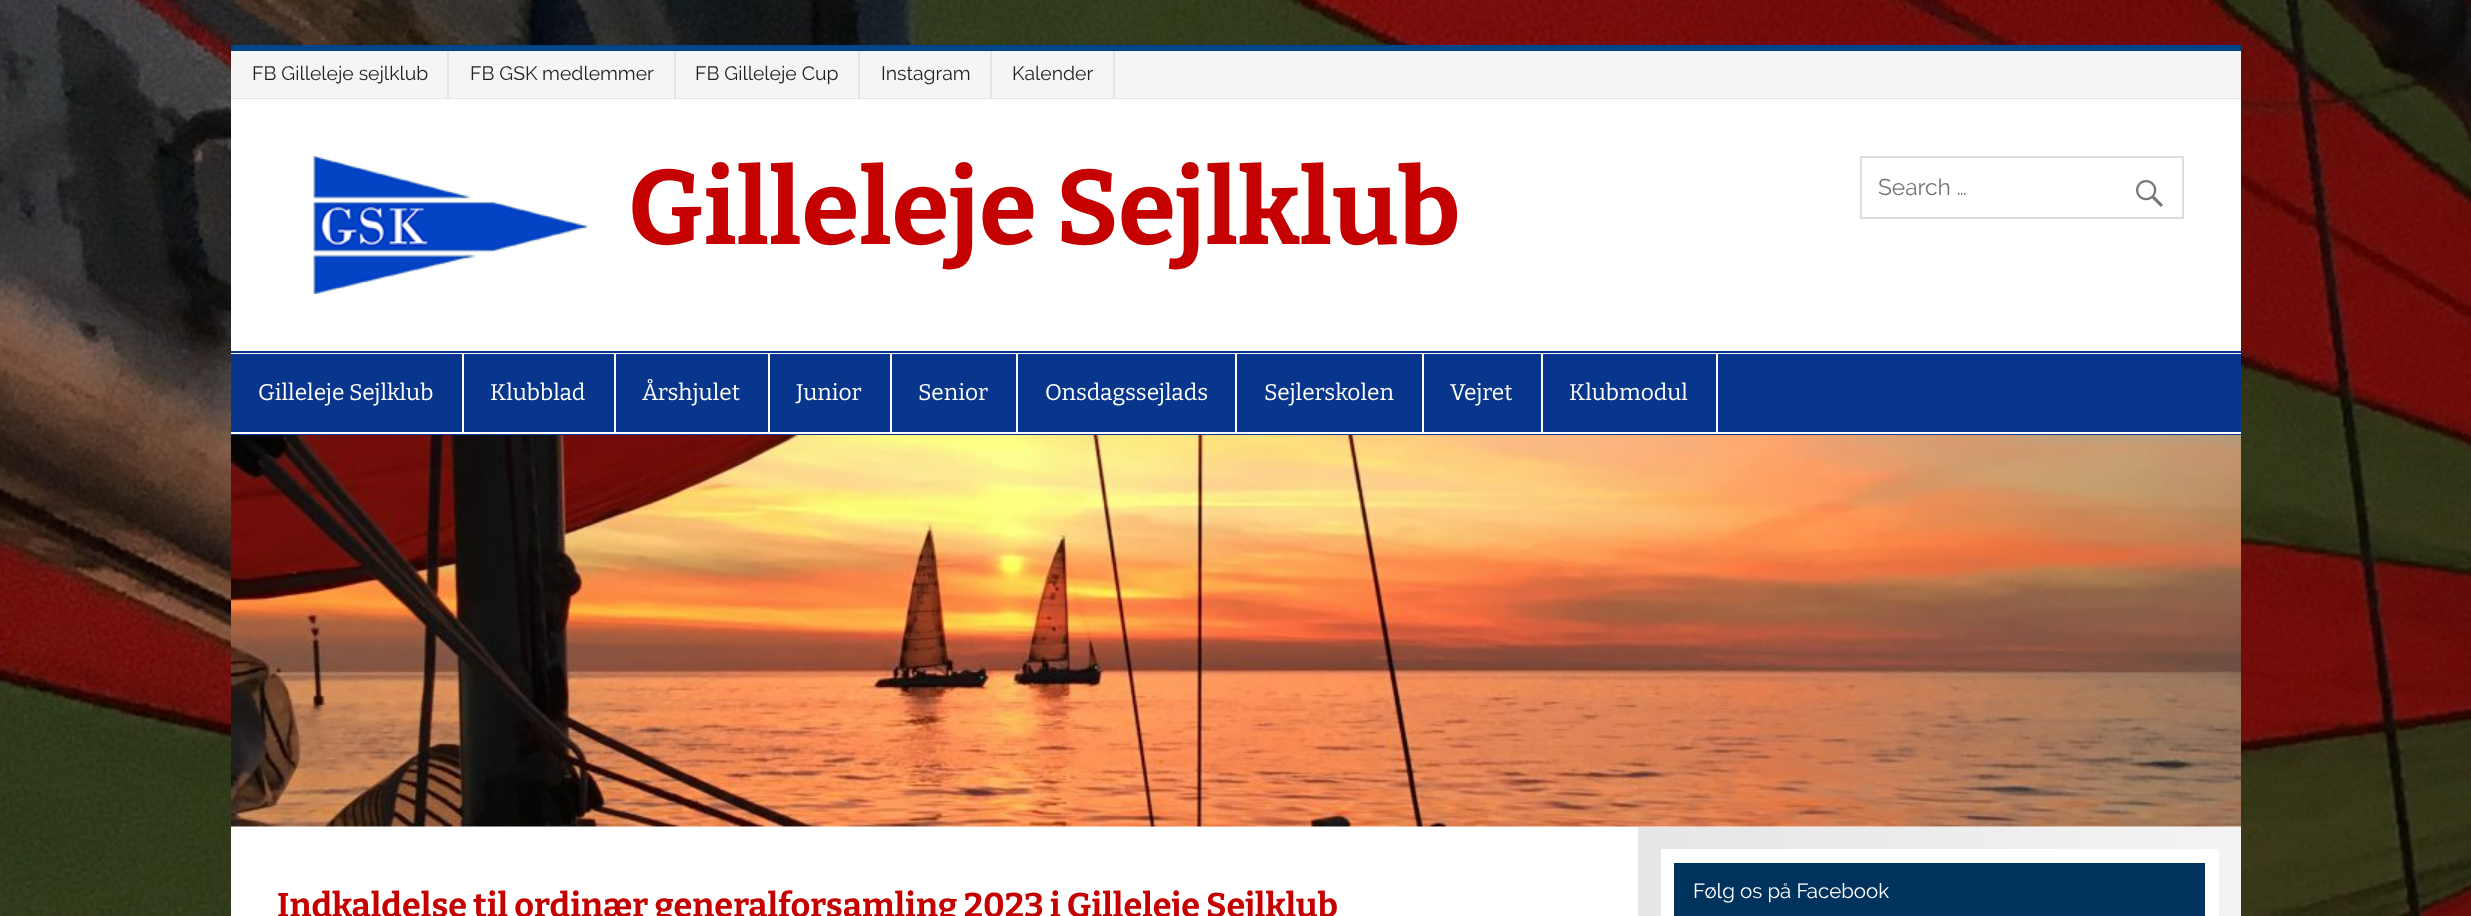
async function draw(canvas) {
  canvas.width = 2471;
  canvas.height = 916;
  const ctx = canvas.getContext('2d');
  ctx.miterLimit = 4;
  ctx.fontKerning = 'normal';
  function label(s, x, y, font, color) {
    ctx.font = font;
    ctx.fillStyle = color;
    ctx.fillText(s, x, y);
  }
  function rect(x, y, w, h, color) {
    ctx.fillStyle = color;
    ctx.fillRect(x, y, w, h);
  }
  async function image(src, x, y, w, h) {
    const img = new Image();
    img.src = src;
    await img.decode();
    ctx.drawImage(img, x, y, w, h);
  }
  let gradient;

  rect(0, 0, 2471, 916, '#fff');
  await image('assets/img1.png', 0, 0, 2471, 916);
  rect(231, 353, 2010, 563, '#fff');
  rect(231, 45, 2010, 6, '#048');
  rect(231, 51, 2010, 47, '#f5f5f5');
  rect(231, 98, 2010, 1, '#e5e5e5');
  rect(447, 51, 2, 47, '#e5e5e5');
  label('FB Gilleleje sejlklub', 252, 80, '19.4px Raleway', '#222');
  rect(674, 51, 2, 47, '#e5e5e5');
  label('FB GSK medlemmer', 470, 80, '19.4px Raleway', '#222');
  rect(858, 51, 2, 47, '#e5e5e5');
  label('FB Gilleleje Cup', 695, 80, '19.4px Raleway', '#222');
  rect(990, 51, 2, 47, '#e5e5e5');
  label('Instagram', 881, 80, '19.4px Raleway', '#222');
  rect(1113, 51, 2, 47, '#e5e5e5');
  label('Kalender', 1012, 80, '19.4px Raleway', '#222');
  rect(231, 99, 2010, 252, '#fff');
  await image('assets/img2.png', 313, 156, 275, 138);
  label('Gilleleje Sejlklub', 628, 244, 'bold 105px Bitter', '#c40000');
  ctx.strokeStyle = '#ddd';
  ctx.lineWidth = 2;
  ctx.strokeRect(1861, 157, 322, 61);
  label('Search …', 1878, 195, '22.75px Raleway', '#757575');
  await image('assets/img3.png', 2136, 180, 27, 27);
  rect(231, 351, 2010, 2, '#08368c');
  rect(231, 434, 2010, 1, '#08368c');
  rect(231, 354, 2010, 78, '#08368c');
  rect(462, 354, 2, 78, '#fff');
  label('Gilleleje Sejlklub', 258, 400, '22.75px Bitter', '#fff');
  rect(614, 354, 2, 78, '#fff');
  label('Klubblad', 490, 400, '22.75px Bitter', '#fff');
  rect(768, 354, 2, 78, '#fff');
  label('Årshjulet', 642, 400, '22.75px Bitter', '#fff');
  rect(890, 354, 2, 78, '#fff');
  label('Junior', 796, 400, '22.75px Bitter', '#fff');
  rect(1016, 354, 2, 78, '#fff');
  label('Senior', 918, 400, '22.75px Bitter', '#fff');
  rect(1235, 354, 2, 78, '#fff');
  label('Onsdagssejlads', 1045, 400, '22.75px Bitter', '#fff');
  rect(1422, 354, 2, 78, '#fff');
  label('Sejlerskolen', 1264, 400, '22.75px Bitter', '#fff');
  rect(1541, 354, 2, 78, '#fff');
  label('Vejret', 1450, 400, '22.75px Bitter', '#fff');
  rect(1716, 354, 2, 78, '#fff');
  label('Klubmodul', 1569, 400, '22.75px Bitter', '#fff');
  await image('assets/img4.png', 231, 435, 2010, 392);
  label('Indkaldelse til ordinær generalforsamling 2023 i Gilleleje Sejlklub', 277, 917, 'bold 34.2px Bitter', '#c40000');
  gradient = ctx.createLinearGradient(1638, 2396, 2241, 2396);
  gradient.addColorStop(0, '#e6e6e6');
  gradient.addColorStop(1, '#f3f3f3');
  ctx.fillStyle = gradient;
  ctx.fillRect(1638, 827, 603, 89);
  rect(1661, 849, 558, 67, '#fff');
  rect(1674, 863, 531, 53, '#00325e');
  label('Følg os på Facebook', 1693, 898, '20.5px Raleway', '#fff');
}

draw(document.querySelector('canvas'));
